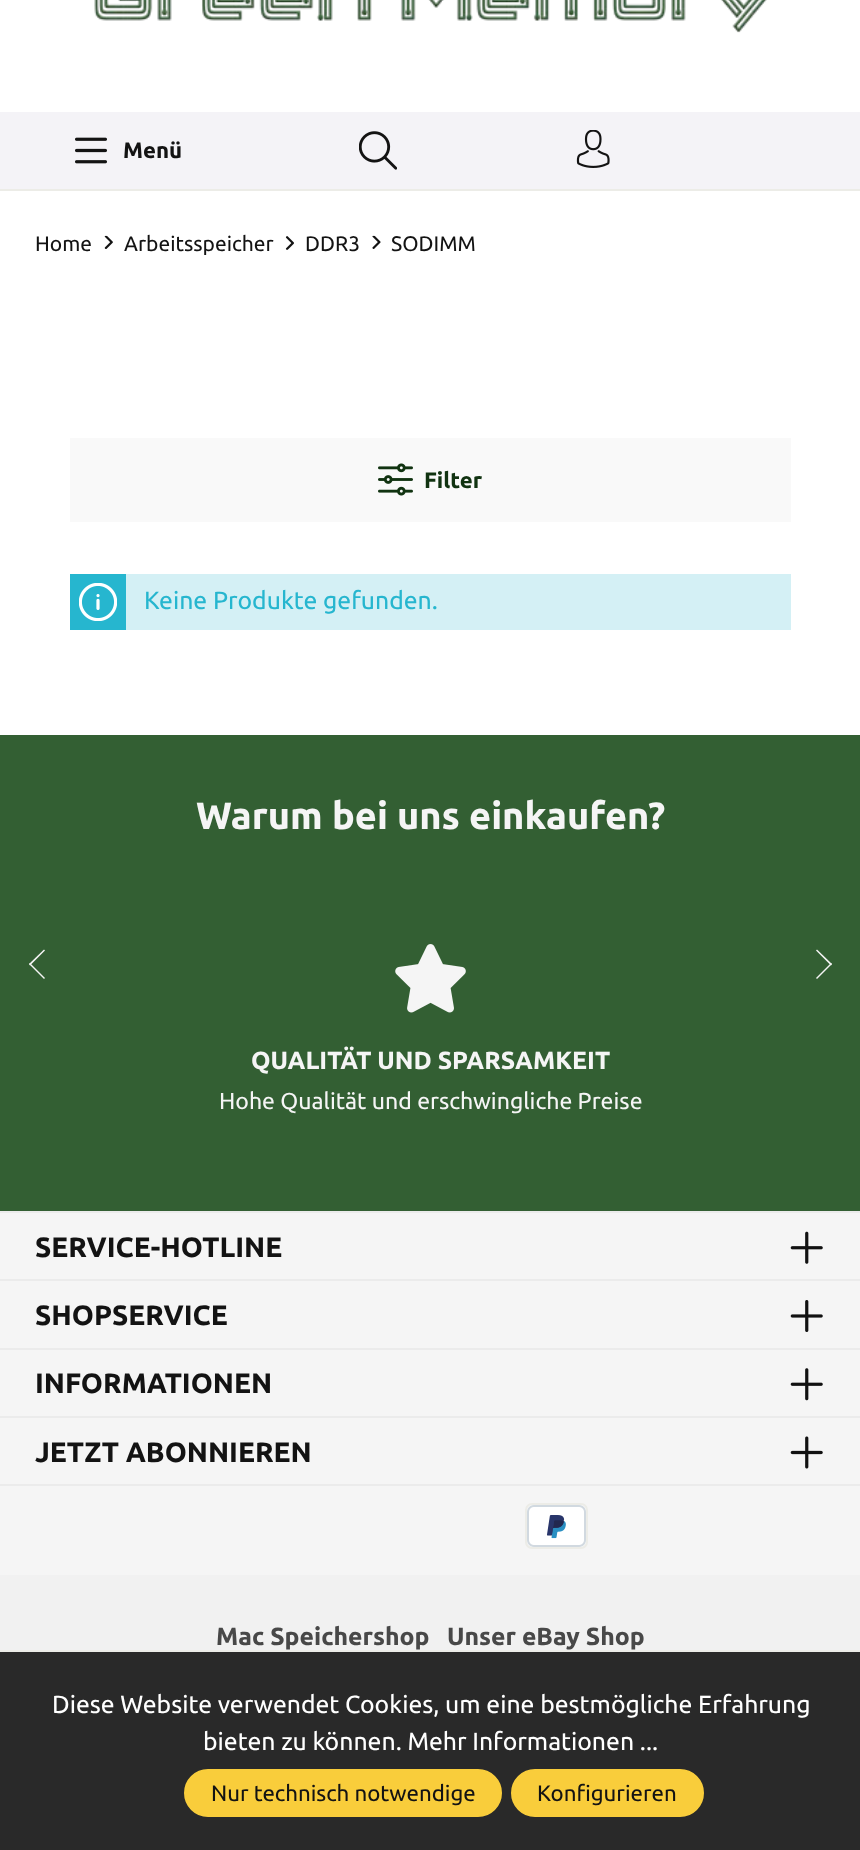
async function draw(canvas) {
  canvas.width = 860;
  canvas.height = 1850;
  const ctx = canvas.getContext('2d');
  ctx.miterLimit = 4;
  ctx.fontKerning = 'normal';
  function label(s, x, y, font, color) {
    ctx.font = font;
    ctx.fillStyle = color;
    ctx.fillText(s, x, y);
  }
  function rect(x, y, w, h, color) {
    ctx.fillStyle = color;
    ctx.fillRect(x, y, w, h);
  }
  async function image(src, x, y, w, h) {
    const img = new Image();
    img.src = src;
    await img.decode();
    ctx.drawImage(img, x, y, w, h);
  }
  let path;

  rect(0, 0, 860, 1850, '#fff');
  await image('assets/img1.png', 94, 0, 673, 33);
  rect(0, 112, 860, 77, '#f4f3f7');
  await image('assets/img2.png', 75, 137, 32, 27);
  label('Menü', 123, 158, 'bold 22.25px Ubuntu', '#131313');
  await image('assets/img3.png', 359, 131, 38, 39);
  await image('assets/img4.png', 576, 130, 34, 38);
  rect(0, 189, 860, 2, '#ecece7');
  label('Home', 35, 251, '21px Ubuntu', '#131313');
  await image('assets/img5.png', 104, 235, 9, 14);
  label('Arbeitsspeicher', 124, 251, '21px Ubuntu', '#131313');
  await image('assets/img6.png', 285, 236, 9, 14);
  label('DDR3', 305, 251, '21px Ubuntu', '#131313');
  await image('assets/img7.png', 372, 235, 9, 14);
  label('SODIMM', 391, 251, '21px Ubuntu', '#131313');
  rect(70, 438, 721, 84, '#f9f9f9');
  await image('assets/img8.png', 378, 463, 35, 33);
  label('Filter', 424, 488, 'bold 22.25px Ubuntu', '#131');
  rect(70, 574, 56, 56, '#26b6cf');
  await image('assets/img9.png', 79, 583, 38, 38);
  rect(126, 574, 665, 56, '#d4f0f5');
  label('Keine Produkte gefunden.', 144, 609, '24.75px Ubuntu', '#26b6cf');
  rect(0, 735, 860, 476, '#335f33');
  label('Warum bei uns einkaufen?', 196, 829, 'bold 37.9px Ubuntu', '#f5f5f5');
  path = new Path2D('M45 978L44 979L29 964L30 963Z');
  ctx.fill(path);
  path = new Path2D('M45 950.5L30 965.5L29 964L44 949.5Z');
  ctx.fill(path);
  path = new Path2D('M816 950.5L817 949.5L832 964L831 965.5Z');
  ctx.fill(path);
  path = new Path2D('M816 978L831 963L832 964L817 979Z');
  ctx.fill(path);
  await image('assets/img10.png', 395, 944, 71, 69);
  label('QUALITÄT UND SPARSAMKEIT', 251, 1069, 'bold 24.75px Ubuntu', '#f5f5f5');
  label('Hohe Qualität und erschwingliche Preise', 219, 1109, '23.1px Ubuntu', '#f5f5f5');
  rect(0, 1213, 860, 362, '#f5f5f5');
  rect(0, 1211, 860, 2, '#ebebeb');
  rect(0, 1279, 860, 2, '#ebebeb');
  label('SERVICE-HOTLINE', 35, 1257, 'bold 28px Ubuntu', '#131313');
  await image('assets/img11.png', 790, 1231, 33, 33);
  rect(0, 1348, 860, 2, '#ebebeb');
  label('SHOPSERVICE', 35, 1325, 'bold 28px Ubuntu', '#131313');
  await image('assets/img12.png', 790, 1300, 33, 32);
  rect(0, 1416, 860, 2, '#ebebeb');
  label('INFORMATIONEN', 35, 1393, 'bold 28px Ubuntu', '#131313');
  await image('assets/img13.png', 790, 1368, 33, 33);
  rect(0, 1484, 860, 2, '#ebebeb');
  label('JETZT ABONNIEREN', 35, 1462, 'bold 28px Ubuntu', '#131313');
  await image('assets/img14.png', 790, 1436, 33, 33);
  ctx.beginPath();
  ctx.roundRect(526, 1504, 61, 44, 6);
  ctx.strokeStyle = '#ecece7';
  ctx.lineWidth = 2;
  ctx.stroke();
  await image('assets/img15.png', 527, 1505, 59, 42);
  rect(0, 1575, 860, 75, '#f1f1f1');
  label('Mac Speichershop', 216, 1645, 'bold 24.75px Ubuntu', '#484848');
  label('Unser eBay Shop', 447, 1645, 'bold 24.75px Ubuntu', '#484848');
  rect(0, 1652, 860, 198, '#292929');
  rect(0, 1650, 860, 2, '#ecece7');
  label('Diese Website verwendet Cookies, um eine bestmögliche Erfahrung', 52, 1713, '24.75px Ubuntu', '#fff');
  label('bieten zu können. Mehr Informationen ...', 203, 1750, '24.75px Ubuntu', '#fff');
  ctx.fillStyle = '#f9cd3b';
  ctx.beginPath();
  ctx.roundRect(185, 1770, 316, 46, 23);
  ctx.fill();
  ctx.strokeStyle = '#f9cd3b';
  ctx.stroke();
  label('Nur technisch notwendige', 211, 1801, '22.25px Ubuntu', '#131313');
  ctx.fillStyle = '#f9cd3b';
  ctx.beginPath();
  ctx.roundRect(512, 1770, 191, 46, 23);
  ctx.fill();
  ctx.stroke();
  label('Konfigurieren', 537, 1801, '22.25px Ubuntu', '#131313');
}

draw(document.querySelector('canvas'));
